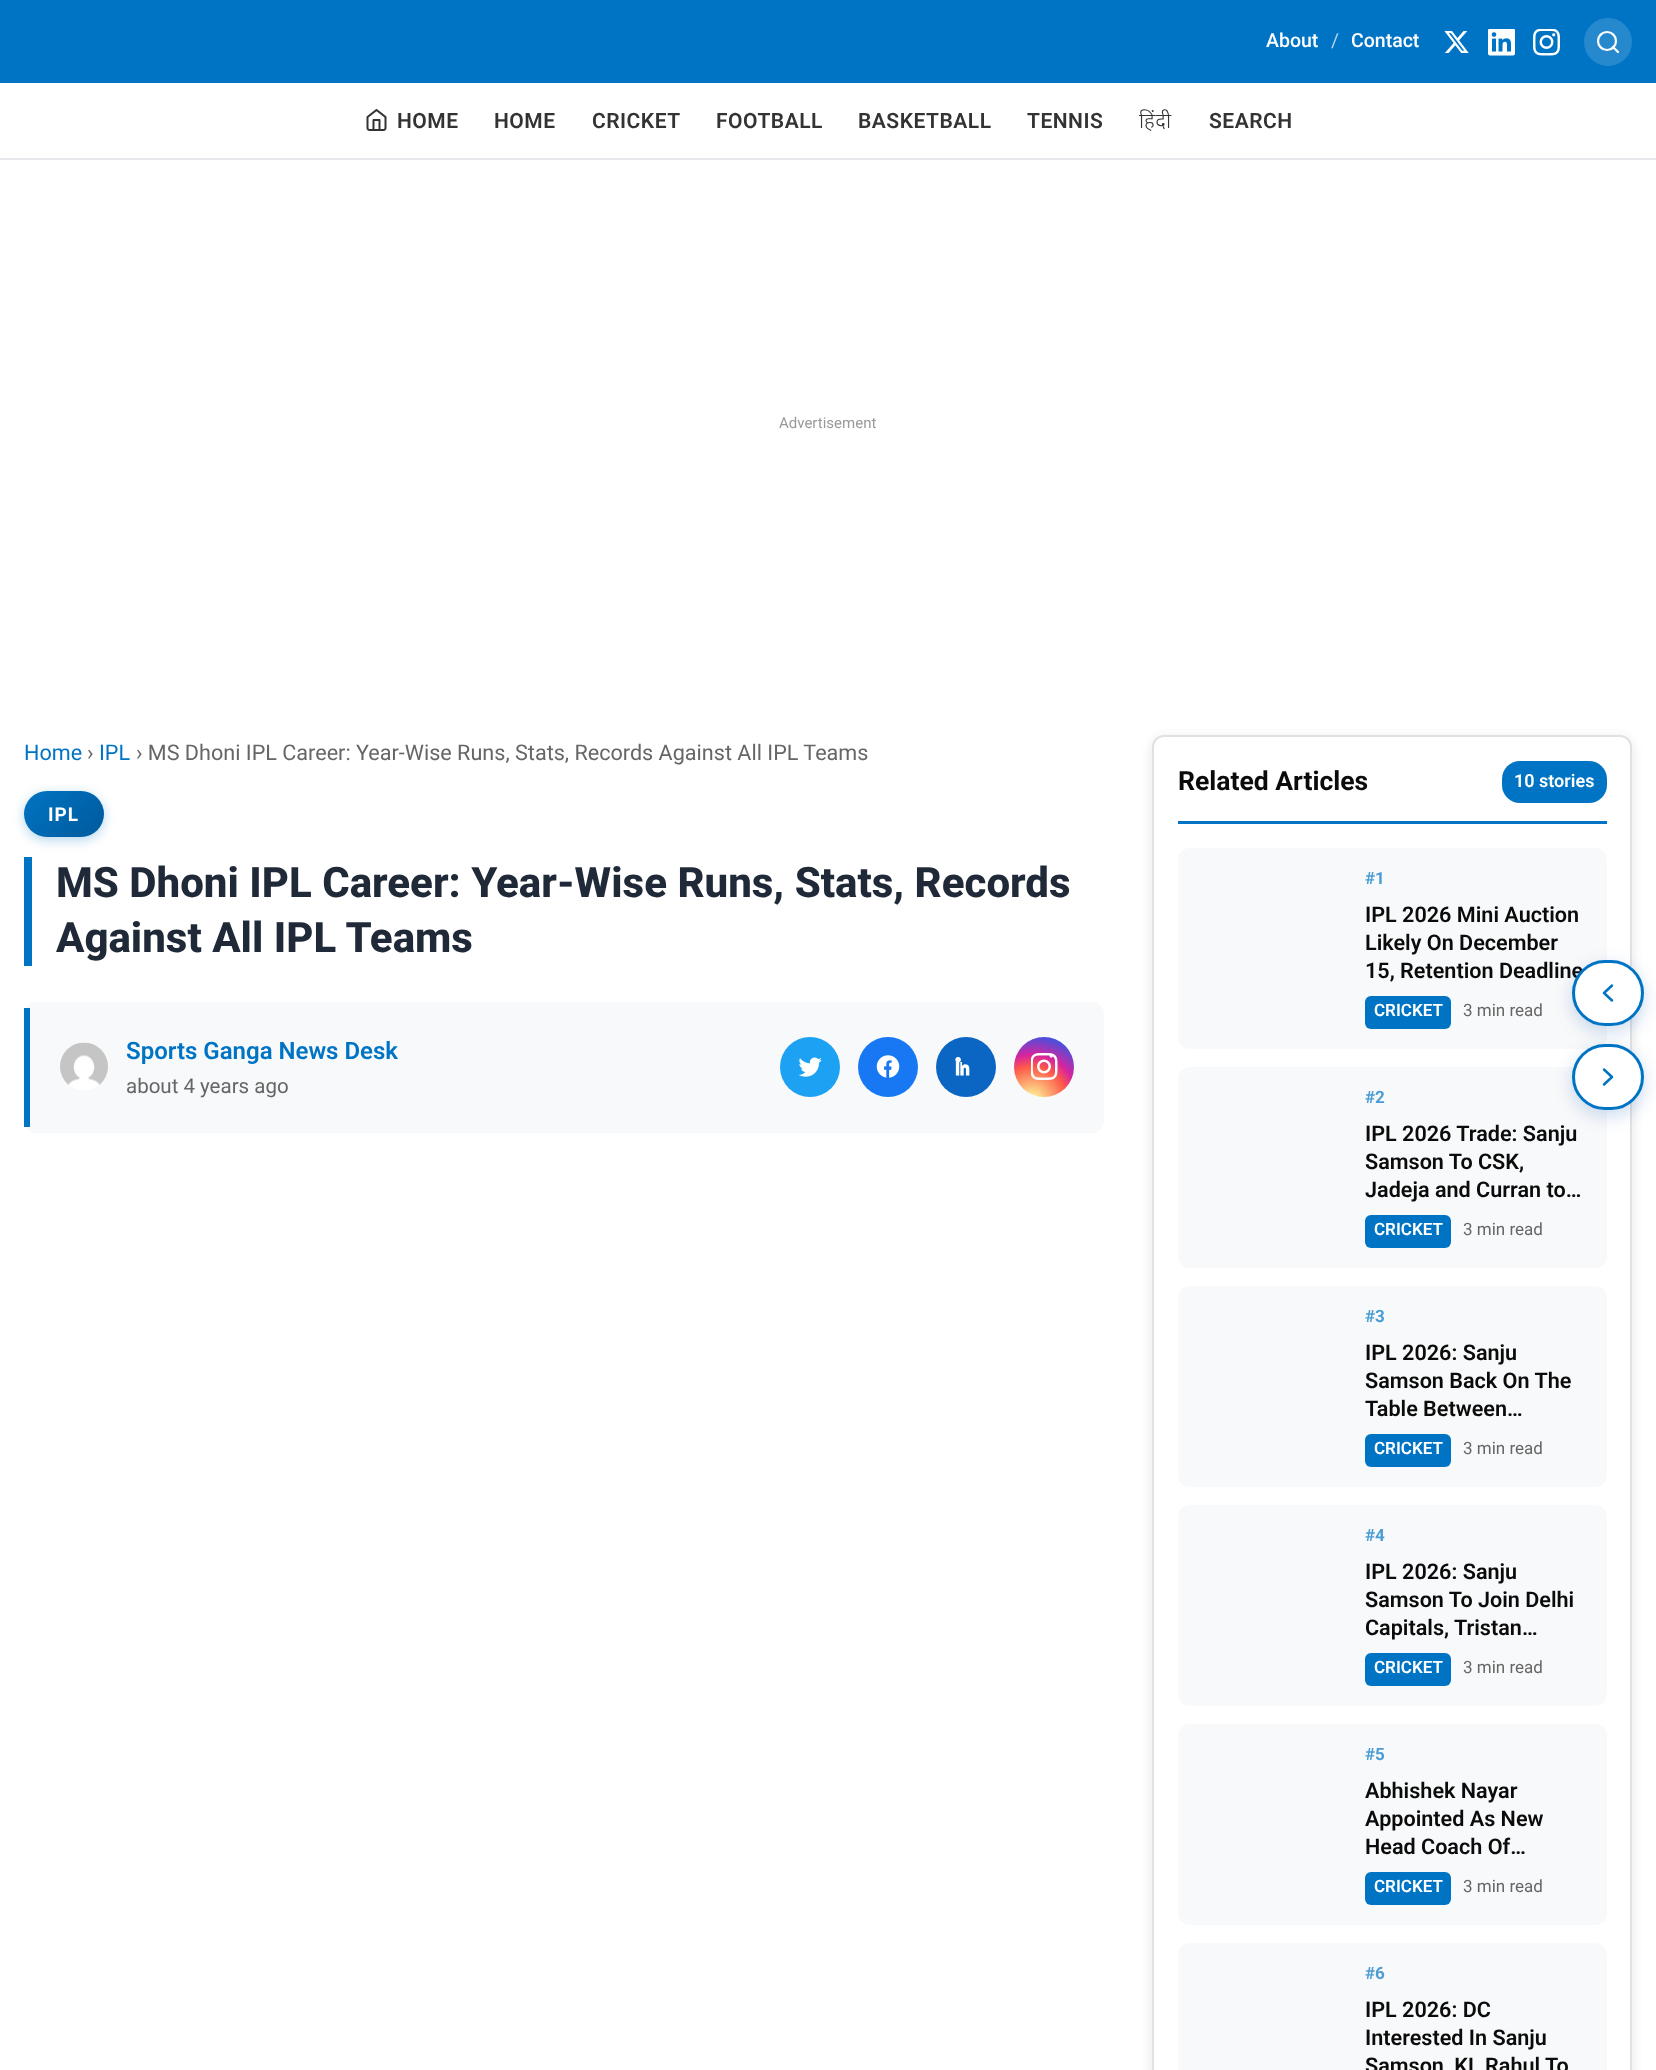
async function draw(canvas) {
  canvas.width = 1656;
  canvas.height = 2070;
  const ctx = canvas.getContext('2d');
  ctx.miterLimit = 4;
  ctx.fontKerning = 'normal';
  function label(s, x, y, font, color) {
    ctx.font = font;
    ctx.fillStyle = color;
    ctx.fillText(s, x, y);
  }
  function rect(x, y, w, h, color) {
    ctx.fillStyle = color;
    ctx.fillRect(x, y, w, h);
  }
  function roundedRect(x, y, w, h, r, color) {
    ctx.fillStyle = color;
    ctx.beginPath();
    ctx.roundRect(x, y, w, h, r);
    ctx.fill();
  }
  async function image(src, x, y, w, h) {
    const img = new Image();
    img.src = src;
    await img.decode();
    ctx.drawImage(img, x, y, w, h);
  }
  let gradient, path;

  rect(0, 0, 1656, 2070, '#fff');
  rect(0, 0, 1656, 83, '#0074c4');
  label('About', 1266, 47, '500 19.5px Roboto', '#fff');
  label('/', 1331, 47, '19.5px Roboto', '#b3d5ed');
  label('Contact', 1351, 47, '500 19.5px Roboto', '#fff');
  await image('assets/img1.png', 1444, 31, 25, 22);
  await image('assets/img2.png', 1488, 29, 27, 27);
  await image('assets/img3.png', 1533, 29, 27, 27);
  ctx.fillStyle = '#2689cd';
  ctx.beginPath();
  ctx.arc(1608, 42, 24, 0, 2 * Math.PI);
  ctx.fill();
  ctx.beginPath();
  ctx.arc(1607, 41, 9, 0, 2 * Math.PI);
  ctx.strokeStyle = '#fff';
  ctx.lineWidth = 2.2;
  ctx.stroke();
  path = new Path2D('M1618 52L1613 47');
  ctx.lineCap = 'round';
  ctx.lineJoin = 'round';
  ctx.stroke(path);
  rect(0, 158, 1656, 2, '#e5e7eb');
  await image('assets/img4.png', 366, 109, 21, 22);
  ctx.letterSpacing = '0.5px';
  label('HOME', 397, 128, '600 21px Roboto', '#333');
  label('HOME', 494, 128, '600 21px Roboto', '#333');
  label('CRICKET', 592, 128, '600 21px Roboto', '#333');
  label('FOOTBALL', 716, 128, '600 21px Roboto', '#333');
  label('BASKETBALL', 858, 128, '600 21px Roboto', '#333');
  label('TENNIS', 1027, 128, '600 21px Roboto', '#333');
  label('हिंदी', 1139, 128, '300 21px Noto Sans', '#333');
  label('SEARCH', 1209, 128, '600 21px Roboto', '#333');
  ctx.letterSpacing = '0px';
  label('Advertisement', 779, 428, '15px Roboto', '#999');
  label('Home', 24, 760, '21.6px Roboto', '#0074c4');
  label('›', 87, 760, '21.6px Roboto', '#666');
  label('IPL', 99, 760, '21.6px Roboto', '#0074c4');
  label('› MS Dhoni IPL Career: Year-Wise Runs, Stats, Records Against All IPL Teams', 136, 760, '21.6px Roboto', '#666');
  rect(24, 857, 8, 109, '#0074c4');
  ctx.fillStyle = '#0074c44d';
  ctx.filter = 'blur(6px)';
  ctx.beginPath();
  ctx.roundRect(24, 794, 80, 46, 23);
  ctx.fill();
  ctx.filter = 'none';
  gradient = ctx.createLinearGradient(32, 782, 95, 845);
  gradient.addColorStop(0, '#0074c4');
  gradient.addColorStop(1, '#005a9c');
  ctx.fillStyle = gradient;
  ctx.beginPath();
  ctx.roundRect(24, 791, 80, 46, 23);
  ctx.fill();
  ctx.letterSpacing = '1px';
  label('IPL', 48, 821, 'bold 19px Roboto', '#fff');
  ctx.letterSpacing = '0px';
  label('MS Dhoni IPL Career: Year-Wise Runs, Stats, Records', 56, 897, '800 42px Roboto', '#1f2937');
  label('Against All IPL Teams', 56, 952, '800 42px Roboto', '#1f2937');
  roundedRect(24, 1002, 1080, 131, 12, '#f8f9fa');
  rect(24, 1008, 6, 119, '#0074c4');
  await image('assets/img5.png', 60, 1042, 48, 48);
  label('Sports Ganga News Desk', 126, 1059, '600 24px Roboto', '#0074c4');
  label('about 4 years ago', 126, 1093, '20.5px Roboto', '#666');
  ctx.fillStyle = '#1da1f2';
  ctx.beginPath();
  ctx.arc(810, 1067, 30, 0, 2 * Math.PI);
  ctx.fill();
  await image('assets/img6.png', 799, 1057, 23, 20);
  ctx.fillStyle = '#1877f2';
  ctx.beginPath();
  ctx.arc(888, 1067, 30, 0, 2 * Math.PI);
  ctx.fill();
  await image('assets/img7.png', 876, 1055, 24, 23);
  ctx.fillStyle = '#0a66c2';
  ctx.beginPath();
  ctx.arc(966, 1067, 30, 0, 2 * Math.PI);
  ctx.fill();
  await image('assets/img8.png', 955, 1057, 15, 19);
  gradient = ctx.createRadialGradient(1032, 1101, 0, 1032, 1101, 77);
  gradient.addColorStop(0, '#fdf497');
  gradient.addColorStop(0.05, '#fdf497');
  gradient.addColorStop(0.45, '#fd5949');
  gradient.addColorStop(0.6, '#d6249f');
  gradient.addColorStop(0.9, '#285aeb');
  ctx.fillStyle = gradient;
  ctx.beginPath();
  ctx.arc(1044, 1067, 30, 0, 2 * Math.PI);
  ctx.fill();
  await image('assets/img9.png', 1031, 1053, 27, 27);
  ctx.fillStyle = '#0000001a';
  ctx.filter = 'blur(6px)';
  ctx.beginPath();
  ctx.roundRect(1152, 738, 480, 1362, 12);
  ctx.fill();
  ctx.filter = 'none';
  ctx.fillStyle = '#fff';
  ctx.beginPath();
  ctx.roundRect(1153, 736, 478, 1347, 11);
  ctx.fill();
  ctx.strokeStyle = '#e1e1e1';
  ctx.lineWidth = 2;
  ctx.lineJoin = 'miter';
  ctx.stroke();
  rect(1178, 821, 429, 3, '#0074c4');
  label('Related Articles', 1178, 790, 'bold 26.5px Roboto', '#0b0b0b');
  roundedRect(1502, 761, 105, 42, 18, '#0074c4');
  label('10 stories', 1514, 787, '600 18px Roboto', '#fff');
  roundedRect(1178, 848, 429, 201, 12, '#f8f9fa');
  label('#1', 1365, 884, 'bold 17px Roboto', '#4a9cd4');
  label('IPL 2026 Mini Auction', 1365, 922, '600 21.6px Roboto', '#0b0b0b');
  label('Likely On December', 1365, 950, '600 21.6px Roboto', '#0b0b0b');
  label('15, Retention Deadline', 1365, 978, '600 21.6px Roboto', '#0b0b0b');
  roundedRect(1365, 996, 86, 33, 6, '#0074c4');
  label('CRICKET', 1374, 1016, '600 17px Roboto', '#fff');
  label('3 min read', 1463, 1016, '17px Roboto', '#666');
  roundedRect(1178, 1067, 429, 201, 12, '#f8f9fa');
  label('#2', 1365, 1103, 'bold 17px Roboto', '#4a9cd4');
  label('IPL 2026 Trade: Sanju', 1365, 1141, '600 21.6px Roboto', '#0b0b0b');
  label('Samson To CSK,', 1365, 1169, '600 21.6px Roboto', '#0b0b0b');
  label('Jadeja and Curran to…', 1365, 1197, '600 21.6px Roboto', '#0b0b0b');
  roundedRect(1365, 1215, 86, 33, 6, '#0074c4');
  label('CRICKET', 1374, 1235, '600 17px Roboto', '#fff');
  label('3 min read', 1463, 1235, '17px Roboto', '#666');
  roundedRect(1178, 1286, 429, 201, 12, '#f8f9fa');
  label('#3', 1365, 1322, 'bold 17px Roboto', '#4a9cd4');
  label('IPL 2026: Sanju', 1365, 1360, '600 21.6px Roboto', '#0b0b0b');
  label('Samson Back On The', 1365, 1388, '600 21.6px Roboto', '#0b0b0b');
  label('Table Between…', 1365, 1416, '600 21.6px Roboto', '#0b0b0b');
  roundedRect(1365, 1434, 86, 33, 6, '#0074c4');
  label('CRICKET', 1374, 1454, '600 17px Roboto', '#fff');
  label('3 min read', 1463, 1454, '17px Roboto', '#666');
  roundedRect(1178, 1505, 429, 201, 12, '#f8f9fa');
  label('#4', 1365, 1541, 'bold 17px Roboto', '#4a9cd4');
  label('IPL 2026: Sanju', 1365, 1579, '600 21.6px Roboto', '#0b0b0b');
  label('Samson To Join Delhi', 1365, 1607, '600 21.6px Roboto', '#0b0b0b');
  label('Capitals, Tristan…', 1365, 1635, '600 21.6px Roboto', '#0b0b0b');
  roundedRect(1365, 1653, 86, 33, 6, '#0074c4');
  label('CRICKET', 1374, 1673, '600 17px Roboto', '#fff');
  label('3 min read', 1463, 1673, '17px Roboto', '#666');
  roundedRect(1178, 1724, 429, 201, 12, '#f8f9fa');
  label('#5', 1365, 1760, 'bold 17px Roboto', '#4a9cd4');
  label('Abhishek Nayar', 1365, 1798, '600 21.6px Roboto', '#0b0b0b');
  label('Appointed As New', 1365, 1826, '600 21.6px Roboto', '#0b0b0b');
  label('Head Coach Of…', 1365, 1854, '600 21.6px Roboto', '#0b0b0b');
  roundedRect(1365, 1872, 86, 33, 6, '#0074c4');
  label('CRICKET', 1374, 1892, '600 17px Roboto', '#fff');
  label('3 min read', 1463, 1892, '17px Roboto', '#666');
  roundedRect(1178, 1943, 429, 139, 12, '#f8f9fa');
  label('#6', 1365, 1979, 'bold 17px Roboto', '#4a9cd4');
  label('IPL 2026: DC', 1365, 2017, '600 21.6px Roboto', '#0b0b0b');
  label('Interested In Sanju', 1365, 2045, '600 21.6px Roboto', '#0b0b0b');
  label('Samson, KL Rahul To', 1365, 2073, '600 21.6px Roboto', '#0b0b0b');
  ctx.fillStyle = '#004aad33';
  ctx.filter = 'blur(9px)';
  ctx.beginPath();
  ctx.roundRect(1572, 966, 72, 66, 33);
  ctx.fill();
  ctx.filter = 'none';
  ctx.fillStyle = '#fff';
  ctx.beginPath();
  ctx.roundRect(1573.5, 961.5, 69, 63, 31.5);
  ctx.fill();
  ctx.strokeStyle = '#0074c4';
  ctx.lineWidth = 3;
  ctx.stroke();
  path = new Path2D('M1612 1000.5L1604 993L1612 985.5');
  ctx.lineWidth = 2.5;
  ctx.lineJoin = 'round';
  ctx.stroke(path);
  ctx.fillStyle = '#004aad33';
  ctx.filter = 'blur(9px)';
  ctx.beginPath();
  ctx.roundRect(1572, 1050, 72, 66, 33);
  ctx.fill();
  ctx.filter = 'none';
  ctx.fillStyle = '#fff';
  ctx.beginPath();
  ctx.roundRect(1573.5, 1045.5, 69, 63, 31.5);
  ctx.fill();
  ctx.lineWidth = 3;
  ctx.lineJoin = 'miter';
  ctx.stroke();
  path = new Path2D('M1604 1084.5L1612 1077L1604 1069.5');
  ctx.lineWidth = 2.5;
  ctx.lineJoin = 'round';
  ctx.stroke(path);
}

draw(document.querySelector('canvas'));
